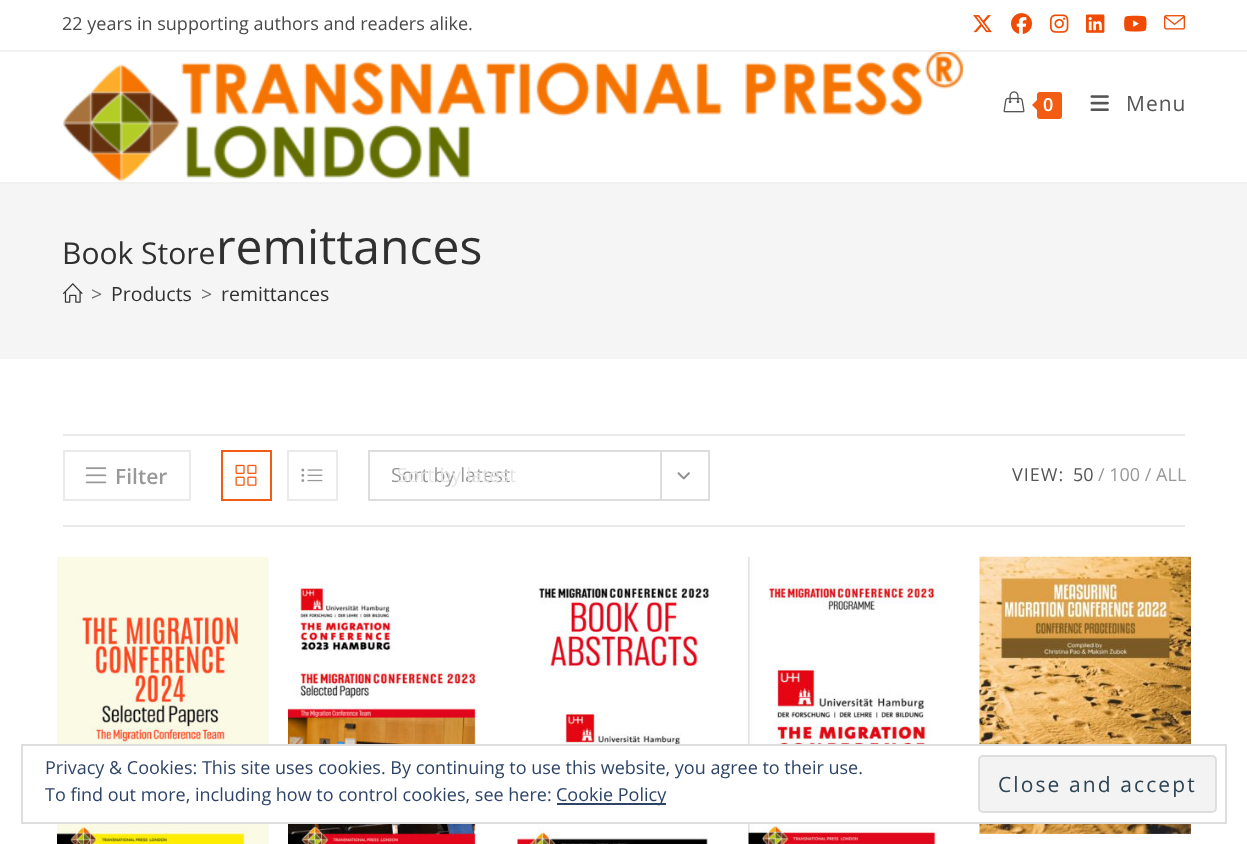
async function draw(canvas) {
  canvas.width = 1247;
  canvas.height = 844;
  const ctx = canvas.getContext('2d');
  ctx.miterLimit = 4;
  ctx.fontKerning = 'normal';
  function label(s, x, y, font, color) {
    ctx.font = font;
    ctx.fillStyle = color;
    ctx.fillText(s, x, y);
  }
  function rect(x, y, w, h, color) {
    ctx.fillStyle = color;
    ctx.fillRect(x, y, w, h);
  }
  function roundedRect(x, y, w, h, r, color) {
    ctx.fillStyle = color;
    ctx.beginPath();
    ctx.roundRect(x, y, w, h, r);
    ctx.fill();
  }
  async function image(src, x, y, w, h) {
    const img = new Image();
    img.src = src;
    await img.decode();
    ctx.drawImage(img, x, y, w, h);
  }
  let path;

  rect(0, 0, 1247, 844, '#fff');
  rect(0, 50, 1247, 2, '#f1f1f1');
  label('22 years in supporting authors and readers alike.', 62, 30, '18px Open Sans', '#494949');
  await image('assets/img1.png', 973, 15, 19, 18);
  await image('assets/img2.png', 1011, 13, 21, 21);
  await image('assets/img3.png', 1050, 14, 19, 19);
  await image('assets/img4.png', 1086, 14, 19, 19);
  await image('assets/img5.png', 1124, 15, 23, 17);
  await image('assets/img6.png', 1164, 15, 21, 15);
  rect(0, 182, 1247, 2, '#f1f1f1');
  await image('assets/img7.png', 63, 52, 900, 130);
  await image('assets/img8.png', 1003, 91, 22, 22);
  roundedRect(1037, 92, 25, 27, 3, '#f25d13');
  path = new Path2D('M1039.5 97.5V112.5L1032 105Z');
  ctx.fill(path);
  ctx.letterSpacing = '1px';
  label('0', 1043, 111, '600 18px Open Sans', '#fff');
  await image('assets/img9.png', 1090, 95, 19, 16);
  label('Menu', 1126, 111, '21px Open Sans', '#555');
  rect(0, 184, 1247, 175, '#f5f5f5');
  ctx.letterSpacing = '0px';
  label('Book Store', 62, 264, '30px Open Sans', '#303030');
  label('remittances', 216, 264, '48px Open Sans', '#303030');
  await image('assets/img10.png', 63, 283, 20, 20);
  label('>', 91, 301, '19.5px Open Sans', '#707070');
  label('Products', 111, 301, '19.5px Open Sans', '#303030');
  label('>', 201, 301, '19.5px Open Sans', '#707070');
  label('remittances', 221, 301, '19.5px Open Sans', '#303030');
  rect(63, 434, 1122, 2, '#eaeaea');
  rect(63, 525, 1122, 2, '#eaeaea');
  ctx.strokeStyle = '#eaeaea';
  ctx.lineWidth = 2;
  ctx.strokeRect(64, 451, 126, 49);
  await image('assets/img11.png', 85, 467, 22, 17);
  label('Filter', 115, 484, '600 21px Open Sans', '#999');
  ctx.strokeStyle = '#f25d13';
  ctx.strokeRect(222, 451, 49, 49);
  await image('assets/img12.png', 235, 464, 22, 22);
  ctx.strokeStyle = '#eaeaea';
  ctx.strokeRect(288, 451, 49, 49);
  await image('assets/img13.png', 301, 468, 22, 14);
  ctx.strokeStyle = '#ddd';
  ctx.strokeRect(369, 451, 340, 49);
  label('Sort by latest', 391, 482, '19.5px Open Sans', '#999');
  rect(660, 452, 2, 48, '#ddd');
  await image('assets/img14.png', 677, 472, 13, 8);
  label('Sort by latest', 397, 482, '19.5px Open Sans', '#e6e6e6');
  ctx.letterSpacing = '1px';
  label('VIEW:', 1012, 481, '18px Open Sans', '#555');
  ctx.letterSpacing = '0px';
  label('50', 1073, 481, '18px Open Sans', '#555');
  label('/ 100 / ALL', 1098, 481, '18px Open Sans', '#999');
  await image('assets/img15.png', 57, 556, 212, 288);
  await image('assets/img16.png', 288, 583, 190, 261);
  await image('assets/img17.png', 517, 584, 194, 260);
  await image('assets/img18.png', 748, 556, 190, 288);
  await image('assets/img19.png', 979, 556, 212, 278);
  rect(57, 746, 1134, 76, '#fff');
  ctx.strokeStyle = '#dedede';
  ctx.strokeRect(22, 745, 1204, 78);
  label('Privacy & Cookies: This site uses cookies. By continuing to use this website, you agree to their use.', 45, 774, '18px Open Sans', '#2e4467');
  label('To find out more, including how to control cookies, see here:', 45, 801, '18px Open Sans', '#2e4467');
  rect(557, 803, 109, 2, '#2e4467');
  label('Cookie Policy', 556, 801, '18px Open Sans', '#2e4467');
  ctx.fillStyle = '#f3f3f3';
  ctx.beginPath();
  ctx.roundRect(979, 756, 237, 56, 4);
  ctx.fill();
  ctx.stroke();
  ctx.letterSpacing = '2.1px';
  label('Close and accept', 998, 792, '21px Open Sans', '#2e4453');
}

draw(document.querySelector('canvas'));
